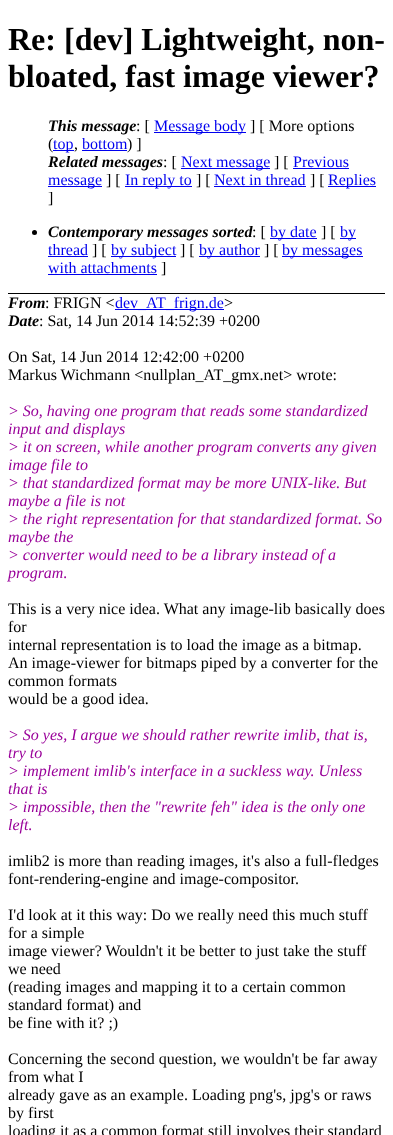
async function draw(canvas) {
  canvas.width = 393;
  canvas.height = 1135;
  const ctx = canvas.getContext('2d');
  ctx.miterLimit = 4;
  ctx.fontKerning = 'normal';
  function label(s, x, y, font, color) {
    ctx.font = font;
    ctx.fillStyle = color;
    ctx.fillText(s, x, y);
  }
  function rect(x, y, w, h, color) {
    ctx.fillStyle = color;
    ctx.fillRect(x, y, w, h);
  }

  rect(0, 0, 393, 1135, '#fff');
  rect(8, 293, 377, 1, '#000');
  label('Re: [dev] Lightweight, non-', 8, 50, 'bold 32px Liberation Serif', '#000');
  label('bloated, fast image viewer?', 8, 87, 'bold 32px Liberation Serif', '#000');
  label('This message', 48, 131, 'italic bold 16px Liberation Serif', '#000');
  label(': [', 136, 131, '16px Liberation Serif', '#000');
  rect(154, 132, 92, 1, '#00e');
  label('Message body', 154, 131, '16px Liberation Serif', '#00e');
  label('] [ More options', 250, 131, '16px Liberation Serif', '#000');
  label('(', 48, 149, '16px Liberation Serif', '#000');
  rect(53, 150, 21, 1, '#00e');
  label('top', 53, 149, '16px Liberation Serif', '#00e');
  label(',', 74, 149, '16px Liberation Serif', '#000');
  label('bottom', 82, 149, '16px Liberation Serif', '#00e');
  rect(82, 150, 45, 1, '#00e');
  label(') ]', 127, 149, '16px Liberation Serif', '#000');
  label('Related messages', 48, 167, 'italic bold 16px Liberation Serif', '#000');
  label(': [', 163, 167, '16px Liberation Serif', '#000');
  rect(181, 168, 89, 1, '#00e');
  label('Next message', 181, 167, '16px Liberation Serif', '#00e');
  label('] [', 274, 167, '16px Liberation Serif', '#000');
  label('Previous', 293, 167, '16px Liberation Serif', '#00e');
  rect(293, 168, 56, 1, '#00e');
  rect(48, 186, 54, 1, '#00e');
  label('message', 48, 185, '16px Liberation Serif', '#00e');
  label('] [', 106, 185, '16px Liberation Serif', '#000');
  rect(125, 186, 67, 1, '#00e');
  label('In reply to', 125, 185, '16px Liberation Serif', '#00e');
  label('] [', 196, 185, '16px Liberation Serif', '#000');
  label('Next in thread', 214, 185, '16px Liberation Serif', '#00e');
  rect(214, 186, 92, 1, '#00e');
  label('] [', 310, 185, '16px Liberation Serif', '#000');
  rect(328, 186, 48, 1, '#00e');
  label('Replies', 328, 185, '16px Liberation Serif', '#00e');
  label(']', 48, 203, '16px Liberation Serif', '#000');
  ctx.beginPath();
  ctx.arc(34.5, 232.5, 2.5, 0, 2 * Math.PI);
  ctx.fill();
  label('Contemporary messages sorted', 48, 237, 'italic bold 16px Liberation Serif', '#000');
  label(': [', 252, 237, '16px Liberation Serif', '#000');
  rect(270, 238, 47, 1, '#00e');
  label('by date', 270, 237, '16px Liberation Serif', '#00e');
  label('] [', 321, 237, '16px Liberation Serif', '#000');
  rect(340, 238, 16, 1, '#00e');
  label('by', 340, 237, '16px Liberation Serif', '#00e');
  label('thread', 48, 255, '16px Liberation Serif', '#00e');
  rect(48, 256, 40, 1, '#00e');
  label('] [', 92, 255, '16px Liberation Serif', '#000');
  rect(111, 256, 65, 1, '#00e');
  label('by subject', 111, 255, '16px Liberation Serif', '#00e');
  label('] [', 180, 255, '16px Liberation Serif', '#000');
  rect(199, 256, 61, 1, '#00e');
  label('by author', 199, 255, '16px Liberation Serif', '#00e');
  label('] [', 264, 255, '16px Liberation Serif', '#000');
  rect(282, 256, 81, 1, '#00e');
  label('by messages', 282, 255, '16px Liberation Serif', '#00e');
  label('with attachments', 48, 273, '16px Liberation Serif', '#00e');
  rect(48, 274, 109, 1, '#00e');
  label(']', 161, 273, '16px Liberation Serif', '#000');
  label('From', 8, 308, 'italic bold 16px Liberation Serif', '#000');
  label(': FRIGN <', 45, 308, '16px Liberation Serif', '#000');
  rect(115, 309, 109, 1, '#00e');
  label('dev_AT_frign.de', 115, 308, '16px Liberation Serif', '#00e');
  label('>', 224, 308, '16px Liberation Serif', '#000');
  label('Date', 8, 326, 'italic bold 16px Liberation Serif', '#000');
  label(': Sat, 14 Jun 2014 14:52:39 +0200', 39, 326, '16px Liberation Serif', '#000');
  label('On Sat, 14 Jun 2014 12:42:00 +0200', 8, 362, '16px Liberation Serif', '#000');
  label('Markus Wichmann <nullplan_AT_gmx.net> wrote:', 8, 380, '16px Liberation Serif', '#000');
  label('> So, having one program that reads some standardized', 8, 416, 'italic 16px Liberation Serif', '#909');
  label('input and displays', 8, 434, 'italic 16px Liberation Serif', '#909');
  label('> it on screen, while another program converts any given', 8, 452, 'italic 16px Liberation Serif', '#909');
  label('image file to', 8, 470, 'italic 16px Liberation Serif', '#909');
  label('> that standardized format may be more UNIX-like. But', 8, 488, 'italic 16px Liberation Serif', '#909');
  label('maybe a file is not', 8, 506, 'italic 16px Liberation Serif', '#909');
  label('> the right representation for that standardized format. So', 8, 524, 'italic 16px Liberation Serif', '#909');
  label('maybe the', 8, 542, 'italic 16px Liberation Serif', '#909');
  label('> converter would need to be a library instead of a', 8, 560, 'italic 16px Liberation Serif', '#909');
  label('program.', 8, 578, 'italic 16px Liberation Serif', '#909');
  label('This is a very nice idea. What any image-lib basically does', 8, 614, '16px Liberation Serif', '#000');
  label('for', 8, 632, '16px Liberation Serif', '#000');
  label('internal representation is to load the image as a bitmap.', 8, 650, '16px Liberation Serif', '#000');
  label('An image-viewer for bitmaps piped by a converter for the', 8, 668, '16px Liberation Serif', '#000');
  label('common formats', 8, 686, '16px Liberation Serif', '#000');
  label('would be a good idea.', 8, 704, '16px Liberation Serif', '#000');
  label('> So yes, I argue we should rather rewrite imlib, that is,', 8, 740, 'italic 16px Liberation Serif', '#909');
  label('try to', 8, 758, 'italic 16px Liberation Serif', '#909');
  label('> implement imlib\'s interface in a suckless way. Unless', 8, 776, 'italic 16px Liberation Serif', '#909');
  label('that is', 8, 794, 'italic 16px Liberation Serif', '#909');
  label('> impossible, then the "rewrite feh" idea is the only one', 8, 812, 'italic 16px Liberation Serif', '#909');
  label('left.', 8, 830, 'italic 16px Liberation Serif', '#909');
  label('imlib2 is more than reading images, it\'s also a full-fledges', 8, 866, '16px Liberation Serif', '#000');
  label('font-rendering-engine and image-compositor.', 8, 884, '16px Liberation Serif', '#000');
  label('I\'d look at it this way: Do we really need this much stuff', 8, 920, '16px Liberation Serif', '#000');
  label('for a simple', 8, 938, '16px Liberation Serif', '#000');
  label('image viewer? Wouldn\'t it be better to just take the stuff', 8, 956, '16px Liberation Serif', '#000');
  label('we need', 8, 974, '16px Liberation Serif', '#000');
  label('(reading images and mapping it to a certain common', 8, 992, '16px Liberation Serif', '#000');
  label('standard format) and', 8, 1010, '16px Liberation Serif', '#000');
  label('be fine with it? ;)', 8, 1028, '16px Liberation Serif', '#000');
  label('Concerning the second question, we wouldn\'t be far away', 8, 1064, '16px Liberation Serif', '#000');
  label('from what I', 8, 1082, '16px Liberation Serif', '#000');
  label('already gave as an example. Loading png\'s, jpg\'s or raws', 8, 1100, '16px Liberation Serif', '#000');
  label('by first', 8, 1118, '16px Liberation Serif', '#000');
  label('loading it as a common format still involves their standard', 8, 1136, '16px Liberation Serif', '#000');
}

draw(document.querySelector('canvas'));
